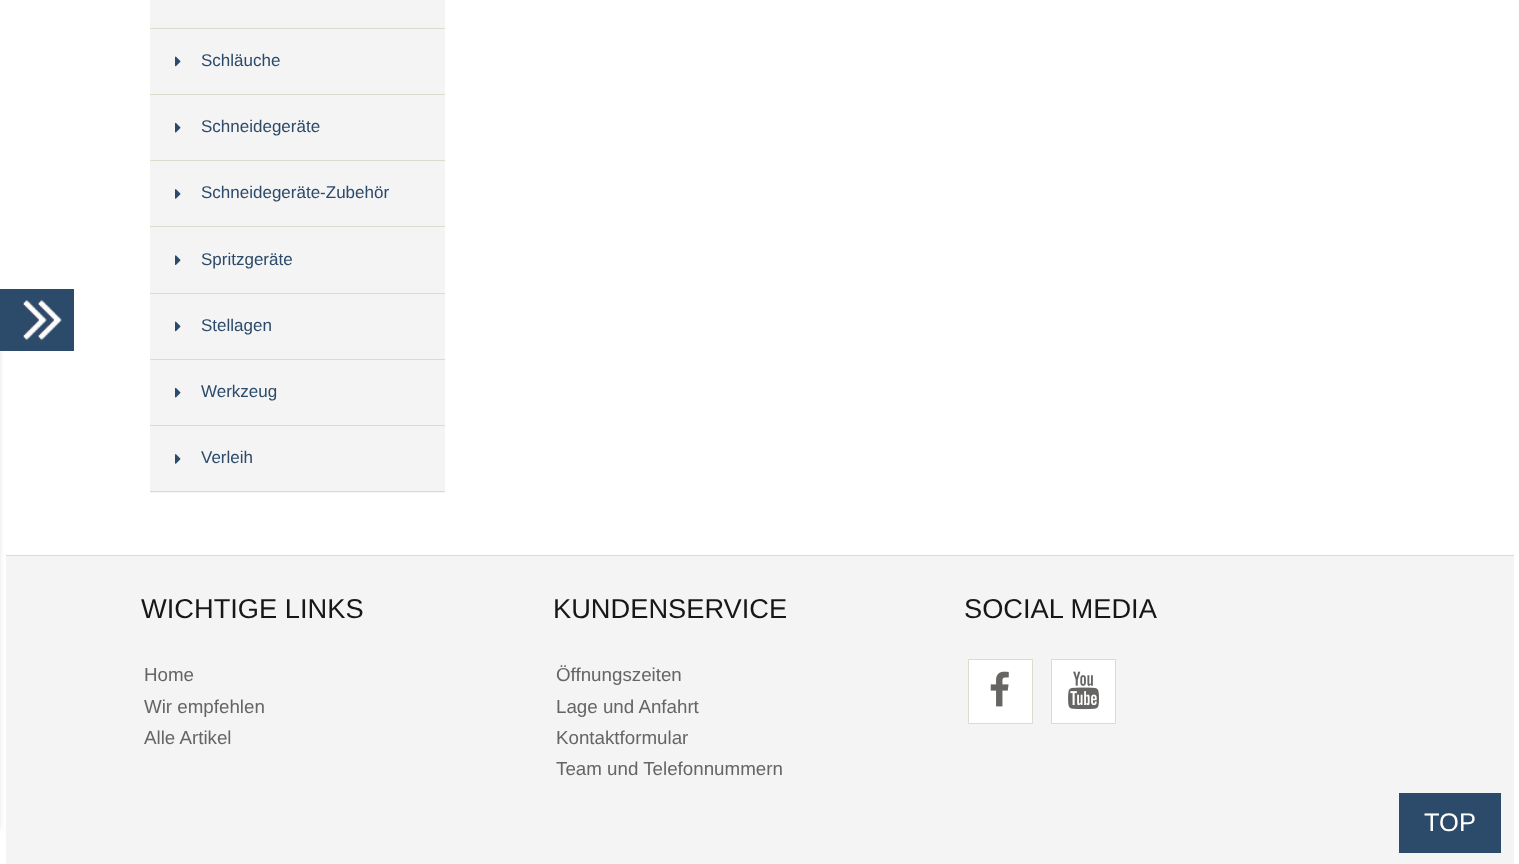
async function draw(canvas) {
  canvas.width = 1519;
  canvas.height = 864;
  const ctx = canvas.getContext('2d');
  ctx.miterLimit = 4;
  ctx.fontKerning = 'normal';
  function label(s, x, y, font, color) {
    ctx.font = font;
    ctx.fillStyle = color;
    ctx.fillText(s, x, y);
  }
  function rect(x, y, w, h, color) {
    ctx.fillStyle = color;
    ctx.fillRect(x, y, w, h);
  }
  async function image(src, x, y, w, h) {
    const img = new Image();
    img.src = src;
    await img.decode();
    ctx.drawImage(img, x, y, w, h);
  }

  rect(0, 0, 1519, 864, '#fff');
  rect(6, 555, 1508, 1, '#dbdbce');
  rect(6, 556, 1508, 308, '#f4f4f4');
  ctx.fillStyle = '#333';
  ctx.filter = 'blur(4.5px)';
  ctx.beginPath();
  ctx.rect(-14, 300, 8, 529);
  ctx.fill();
  ctx.filter = 'none';
  await image('assets/img1.png', 0, 289, 74, 62);
  rect(150, 0, 295, 28, '#f4f4f4');
  rect(150, 28, 295, 1, '#dbdbce');
  rect(150, 29, 295, 65, '#f4f4f4');
  rect(150, 94, 295, 1, '#dbdbce');
  await image('assets/img2.png', 175, 56, 6, 11);
  rect(200, 53, 1, 1, '#fff');
  label('Schläuche', 201, 66, '17px Liberation Sans', '#2c4a69');
  rect(150, 95, 295, 65, '#f4f4f4');
  rect(150, 160, 295, 1, '#dbdbce');
  await image('assets/img3.png', 175, 122, 6, 11);
  rect(200, 119, 1, 1, '#fff');
  label('Schneidegeräte', 201, 132, '17px Liberation Sans', '#2c4a69');
  rect(150, 161, 295, 132, '#f4f4f4');
  rect(150, 226, 295, 1, '#dbdbce');
  await image('assets/img4.png', 175, 189, 6, 10);
  await image('assets/img5.png', 200, 185, 1, 2);
  label('Schneidegeräte-Zubehör', 201, 198, '17px Liberation Sans', '#2c4a69');
  rect(150, 293, 295, 1, '#dbdbce');
  await image('assets/img6.png', 175, 255, 6, 10);
  await image('assets/img7.png', 200, 251, 1, 2);
  label('Spritzgeräte', 201, 265, '17px Liberation Sans', '#2c4a69');
  rect(150, 294, 295, 65, '#f4f4f4');
  rect(150, 359, 295, 1, '#dbdbce');
  await image('assets/img2.png', 175, 321, 6, 11);
  rect(200, 318, 1, 1, '#fff');
  label('Stellagen', 201, 331, '17px Liberation Sans', '#2c4a69');
  rect(150, 360, 295, 65, '#f4f4f4');
  rect(150, 425, 295, 1, '#dbdbce');
  await image('assets/img3.png', 175, 387, 6, 11);
  rect(200, 384, 1, 1, '#fff');
  label('Werkzeug', 201, 397, '17px Liberation Sans', '#2c4a69');
  rect(150, 426, 295, 67, '#f4f4f4');
  rect(150, 491, 295, 1, '#dbdbce');
  await image('assets/img4.png', 175, 454, 6, 10);
  await image('assets/img5.png', 200, 450, 1, 2);
  label('Verleih', 201, 463, '17px Liberation Sans', '#2c4a69');
  label('WICHTIGE LINKS', 141, 618, '27.25px Liberation Sans', '#171717');
  label('Home', 144, 681, '18.75px Liberation Sans', '#666564');
  label('Wir empfehlen', 144, 713, '18.75px Liberation Sans', '#666564');
  label('Alle Artikel', 144, 744, '18.75px Liberation Sans', '#666564');
  label('KUNDENSERVICE', 553, 618, '27.25px Liberation Sans', '#171717');
  label('Öffnungszeiten', 556, 681, '18.75px Liberation Sans', '#666564');
  label('Lage und Anfahrt', 556, 713, '18.75px Liberation Sans', '#666564');
  label('Kontaktformular', 556, 744, '18.75px Liberation Sans', '#666564');
  label('Team und Telefonnummern', 556, 775, '18.75px Liberation Sans', '#666564');
  label('SOCIAL MEDIA', 964, 618, '27.25px Liberation Sans', '#171717');
  ctx.fillStyle = '#fff';
  ctx.beginPath();
  ctx.rect(968.5, 659.5, 64, 64);
  ctx.fill();
  ctx.strokeStyle = '#dbdbce';
  ctx.stroke();
  await image('assets/img8.png', 990, 671, 19, 36);
  ctx.beginPath();
  ctx.rect(1051.5, 659.5, 64, 64);
  ctx.fill();
  ctx.stroke();
  await image('assets/img9.png', 1068, 671, 31, 39);
  rect(1399, 793, 102, 60, '#2c4a69');
  label('TOP', 1424, 831, '25.5px Liberation Sans', '#fff');
}

draw(document.querySelector('canvas'));
